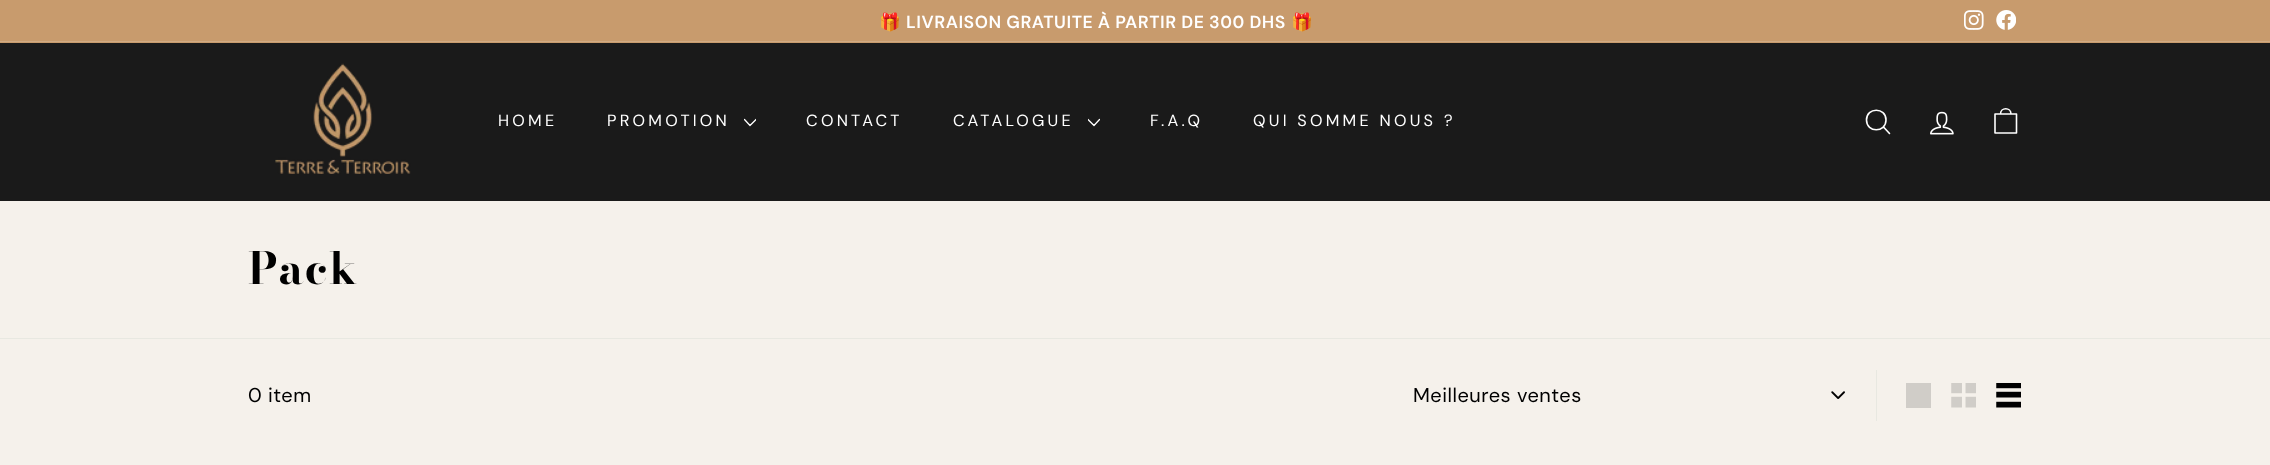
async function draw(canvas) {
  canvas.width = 2270;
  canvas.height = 465;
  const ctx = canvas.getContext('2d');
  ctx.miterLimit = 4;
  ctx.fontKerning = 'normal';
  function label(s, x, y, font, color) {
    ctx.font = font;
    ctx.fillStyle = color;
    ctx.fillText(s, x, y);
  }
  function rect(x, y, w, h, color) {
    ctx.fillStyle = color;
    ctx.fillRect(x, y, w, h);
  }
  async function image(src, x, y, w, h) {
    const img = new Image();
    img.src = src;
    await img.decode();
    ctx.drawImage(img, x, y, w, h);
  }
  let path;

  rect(0, 0, 2270, 465, '#f5f1eb');
  rect(0, 0, 2270, 43, '#c89b6d');
  ctx.letterSpacing = '0.5px';
  label('🎁', 879, 28, 'bold 17.5px Noto Color Emoji', '#fff');
  ctx.wordSpacing = '-0.25px';
  label('LIVRAISON GRATUITE À PARTIR DE 300 DHS', 906, 28, '600 17.5px DM Sans', '#fff');
  ctx.wordSpacing = '0px';
  label('🎁', 1291, 28, 'bold 17.5px Noto Color Emoji', '#fff');
  await image('assets/img1.png', 1964, 10, 20, 20);
  await image('assets/img2.png', 1996, 10, 20, 20);
  rect(0, 41, 2270, 1, '#d0aa83');
  rect(0, 43, 2270, 158, '#1a1a1a');
  await image('assets/img3.png', 275, 63, 136, 111);
  ctx.letterSpacing = '3.25px';
  label('HOME', 498, 126, '16.25px "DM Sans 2"', '#fff');
  label('PROMOTION', 607, 126, '16.25px "DM Sans 2"', '#fff');
  ctx.save();
  ctx.beginPath();
  ctx.rect(744, 116, 12, 13);
  ctx.clip();
  path = new Path2D('M744.5 119.5L750 125.5L756 119.5');
  ctx.strokeStyle = '#fff';
  ctx.lineWidth = 1.3;
  ctx.lineCap = 'round';
  ctx.lineJoin = 'round';
  ctx.stroke(path);
  ctx.restore();
  label('CONTACT', 806, 126, '16.25px "DM Sans 2"', '#fff');
  label('CATALOGUE', 953, 126, '16.25px "DM Sans 2"', '#fff');
  ctx.save();
  ctx.beginPath();
  ctx.rect(1088, 116, 12, 13);
  ctx.clip();
  path = new Path2D('M1088 119.5L1094 125.5L1099.5 119.5');
  ctx.strokeStyle = '#fff';
  ctx.lineWidth = 1.3;
  ctx.lineCap = 'round';
  ctx.lineJoin = 'round';
  ctx.stroke(path);
  ctx.restore();
  label('F.A.Q', 1150, 126, '16.25px "DM Sans 2"', '#fff');
  label('QUI SOMME NOUS ?', 1253, 126, '16.25px "DM Sans 2"', '#fff');
  path = new Path2D('M1886 120C1886 133 1866.5 133 1866.5 120C1866.5 107 1886 107 1886 120ZM1889.5 133.5L1883.5 127');
  ctx.strokeStyle = '#fff';
  ctx.lineWidth = 1.6;
  ctx.lineCap = 'round';
  ctx.lineJoin = 'round';
  ctx.stroke(path);
  await image('assets/img4.png', 1930, 111, 24, 24);
  path = new Path2D('M2000.5 114C2000.5 107 2011 107 2011 114M1995 114H2016.5V133H1995Z');
  ctx.stroke(path);
  ctx.letterSpacing = '1px';
  label('Pack', 248, 284, 'bold 44px Bodoni Moda', '#000');
  rect(0, 338, 2270, 1, '#e8e8e1');
  ctx.letterSpacing = '0.5px';
  label('0 item', 248, 402, '20px DM Sans', '#000');
  rect(1876, 370, 1, 51, '#e8e8e1');
  await image('assets/img5.png', 1831, 391, 14, 8);
  label('Meilleures ventes', 1413, 402, '20px DM Sans', '#000');
  rect(1906, 383, 25, 25, '#d0cdc8');
  await image('assets/img6.png', 1951, 383, 25, 25);
  await image('assets/img7.png', 1996, 383, 25, 25);
}

draw(document.querySelector('canvas'));
